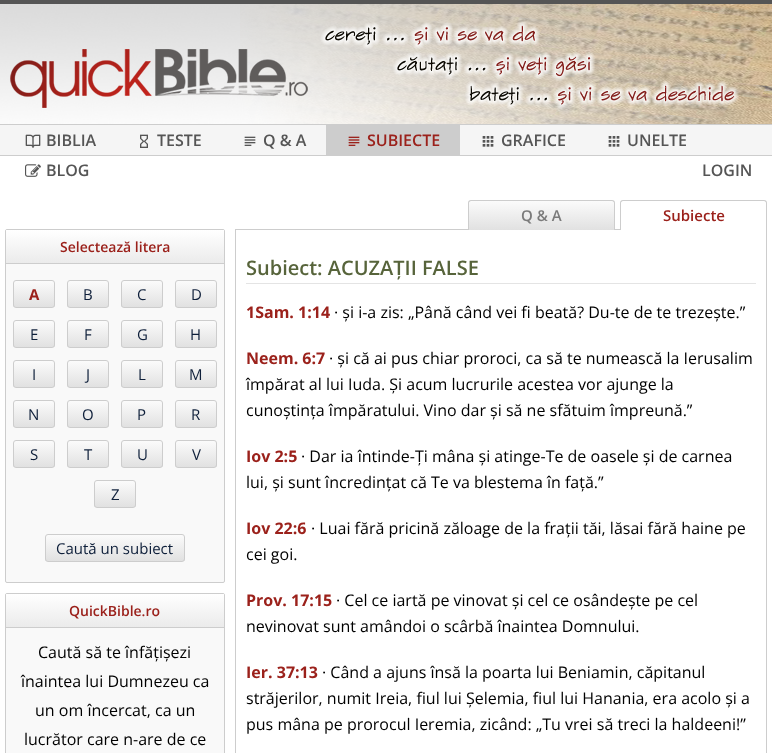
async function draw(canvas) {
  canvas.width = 772;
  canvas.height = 753;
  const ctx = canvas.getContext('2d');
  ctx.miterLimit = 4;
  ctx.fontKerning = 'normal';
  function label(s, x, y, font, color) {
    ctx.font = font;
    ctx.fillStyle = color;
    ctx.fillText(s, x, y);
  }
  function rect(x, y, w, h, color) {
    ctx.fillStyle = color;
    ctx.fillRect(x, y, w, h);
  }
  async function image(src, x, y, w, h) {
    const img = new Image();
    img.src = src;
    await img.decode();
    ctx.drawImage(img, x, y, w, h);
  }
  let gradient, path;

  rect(0, 0, 772, 753, '#fff');
  await image('assets/img1.png', 0, 4, 772, 120);
  rect(0, 0, 772, 4, '#555');
  await image('assets/img2.png', 240, 4, 532, 120);
  await image('assets/img3.png', 320, 21, 419, 89);
  await image('assets/img4.png', 10, 49, 298, 59);
  rect(0, 125, 772, 30, '#f5f5f5');
  rect(0, 124, 772, 1, '#cdcdcd');
  rect(0, 155, 772, 1, '#cdcdcd');
  await image('assets/img5.png', 25, 134, 16, 14);
  label('BIBLIA', 46, 146, '600 16px Open Sans', '#555');
  await image('assets/img6.png', 140, 134, 8, 14);
  label('TESTE', 157, 146, '600 16px Open Sans', '#555');
  await image('assets/img7.png', 244, 136, 12, 10);
  label('Q & A', 263, 146, '600 16px Open Sans', '#555');
  rect(326, 125, 134, 30, '#cdcdcd');
  await image('assets/img8.png', 348, 136, 12, 10);
  label('SUBIECTE', 367, 146, '600 16px Open Sans', '#9b211b');
  await image('assets/img9.png', 482, 136, 12, 11);
  label('GRAFICE', 501, 146, '600 16px Open Sans', '#555');
  await image('assets/img9.png', 608, 136, 12, 11);
  label('UNELTE', 627, 146, '600 16px Open Sans', '#555');
  await image('assets/img10.png', 25, 164, 16, 13);
  label('BLOG', 46, 176, '600 16px Open Sans', '#555');
  label('LOGIN', 702, 176, '600 16px Open Sans', '#555');
  ctx.fillStyle = '#f9f9f9';
  ctx.beginPath();
  ctx.roundRect(5.5, 229.5, 219, 353, 1.5);
  ctx.fill();
  ctx.strokeStyle = '#cdcdcd';
  ctx.stroke();
  gradient = ctx.createLinearGradient(115, 230, 115, 263);
  gradient.addColorStop(0, '#fff');
  gradient.addColorStop(1, '#ebebeb');
  ctx.fillStyle = gradient;
  ctx.fillRect(6, 230, 218, 33);
  rect(6, 263, 218, 1, '#cdcdcd');
  label('Selectează litera', 60, 252, '600 14px Open Sans', '#9b211b');
  ctx.save();
  ctx.beginPath();
  ctx.roundRect(13, 280, 42, 28, 3);
  ctx.clip();
  gradient = ctx.createLinearGradient(34, 281, 34, 307);
  gradient.addColorStop(0, '#fbfbfb');
  gradient.addColorStop(1, '#e1e1e1');
  ctx.fillStyle = gradient;
  ctx.fillRect(13, 281, 42, 26);
  ctx.restore();
  ctx.beginPath();
  ctx.roundRect(13.5, 280.5, 41, 27, 2.5);
  ctx.stroke();
  label('A', 29, 300, 'bold 15px Open Sans', '#9b211b');
  ctx.save();
  ctx.beginPath();
  ctx.roundRect(67, 280, 42, 28, 3);
  ctx.clip();
  gradient = ctx.createLinearGradient(88, 281, 88, 307);
  gradient.addColorStop(0, '#fbfbfb');
  gradient.addColorStop(1, '#e1e1e1');
  ctx.fillStyle = gradient;
  ctx.fillRect(67, 281, 42, 26);
  ctx.restore();
  ctx.beginPath();
  ctx.roundRect(67.5, 280.5, 41, 27, 2.5);
  ctx.stroke();
  label('B', 83, 300, '15px Open Sans', '#0e1f3a');
  ctx.save();
  ctx.beginPath();
  ctx.roundRect(121, 280, 42, 28, 3);
  ctx.clip();
  gradient = ctx.createLinearGradient(142, 281, 142, 307);
  gradient.addColorStop(0, '#fbfbfb');
  gradient.addColorStop(1, '#e1e1e1');
  ctx.fillStyle = gradient;
  ctx.fillRect(121, 281, 42, 26);
  ctx.restore();
  ctx.beginPath();
  ctx.roundRect(121.5, 280.5, 41, 27, 2.5);
  ctx.stroke();
  label('C', 137, 300, '15px Open Sans', '#0e1f3a');
  ctx.save();
  ctx.beginPath();
  ctx.roundRect(175, 280, 42, 28, 3);
  ctx.clip();
  gradient = ctx.createLinearGradient(196, 281, 196, 307);
  gradient.addColorStop(0, '#fbfbfb');
  gradient.addColorStop(1, '#e1e1e1');
  ctx.fillStyle = gradient;
  ctx.fillRect(175, 281, 42, 26);
  ctx.restore();
  ctx.beginPath();
  ctx.roundRect(175.5, 280.5, 41, 27, 2.5);
  ctx.stroke();
  label('D', 191, 300, '15px Open Sans', '#0e1f3a');
  ctx.save();
  ctx.beginPath();
  ctx.roundRect(13, 320, 42, 28, 3);
  ctx.clip();
  gradient = ctx.createLinearGradient(34, 321, 34, 347);
  gradient.addColorStop(0, '#fbfbfb');
  gradient.addColorStop(1, '#e1e1e1');
  ctx.fillStyle = gradient;
  ctx.fillRect(13, 321, 42, 26);
  ctx.restore();
  ctx.beginPath();
  ctx.roundRect(13.5, 320.5, 41, 27, 2.5);
  ctx.stroke();
  label('E', 30, 340, '15px Open Sans', '#0e1f3a');
  ctx.save();
  ctx.beginPath();
  ctx.roundRect(67, 320, 42, 28, 3);
  ctx.clip();
  gradient = ctx.createLinearGradient(88, 321, 88, 347);
  gradient.addColorStop(0, '#fbfbfb');
  gradient.addColorStop(1, '#e1e1e1');
  ctx.fillStyle = gradient;
  ctx.fillRect(67, 321, 42, 26);
  ctx.restore();
  ctx.beginPath();
  ctx.roundRect(67.5, 320.5, 41, 27, 2.5);
  ctx.stroke();
  label('F', 84, 340, '15px Open Sans', '#0e1f3a');
  ctx.save();
  ctx.beginPath();
  ctx.roundRect(121, 320, 42, 28, 3);
  ctx.clip();
  gradient = ctx.createLinearGradient(142, 321, 142, 347);
  gradient.addColorStop(0, '#fbfbfb');
  gradient.addColorStop(1, '#e1e1e1');
  ctx.fillStyle = gradient;
  ctx.fillRect(121, 321, 42, 26);
  ctx.restore();
  ctx.beginPath();
  ctx.roundRect(121.5, 320.5, 41, 27, 2.5);
  ctx.stroke();
  label('G', 137, 340, '15px Open Sans', '#0e1f3a');
  ctx.save();
  ctx.beginPath();
  ctx.roundRect(175, 320, 42, 28, 3);
  ctx.clip();
  gradient = ctx.createLinearGradient(196, 321, 196, 347);
  gradient.addColorStop(0, '#fbfbfb');
  gradient.addColorStop(1, '#e1e1e1');
  ctx.fillStyle = gradient;
  ctx.fillRect(175, 321, 42, 26);
  ctx.restore();
  ctx.beginPath();
  ctx.roundRect(175.5, 320.5, 41, 27, 2.5);
  ctx.stroke();
  label('H', 190, 340, '15px Open Sans', '#0e1f3a');
  ctx.save();
  ctx.beginPath();
  ctx.roundRect(13, 360, 42, 28, 3);
  ctx.clip();
  gradient = ctx.createLinearGradient(34, 361, 34, 387);
  gradient.addColorStop(0, '#fbfbfb');
  gradient.addColorStop(1, '#e1e1e1');
  ctx.fillStyle = gradient;
  ctx.fillRect(13, 361, 42, 26);
  ctx.restore();
  ctx.beginPath();
  ctx.roundRect(13.5, 360.5, 41, 27, 2.5);
  ctx.stroke();
  label('I', 32, 380, '15px Open Sans', '#0e1f3a');
  ctx.save();
  ctx.beginPath();
  ctx.roundRect(67, 360, 42, 28, 3);
  ctx.clip();
  gradient = ctx.createLinearGradient(88, 361, 88, 387);
  gradient.addColorStop(0, '#fbfbfb');
  gradient.addColorStop(1, '#e1e1e1');
  ctx.fillStyle = gradient;
  ctx.fillRect(67, 361, 42, 26);
  ctx.restore();
  ctx.beginPath();
  ctx.roundRect(67.5, 360.5, 41, 27, 2.5);
  ctx.stroke();
  label('J', 86, 380, '15px Open Sans', '#0e1f3a');
  ctx.save();
  ctx.beginPath();
  ctx.roundRect(121, 360, 42, 28, 3);
  ctx.clip();
  gradient = ctx.createLinearGradient(142, 361, 142, 387);
  gradient.addColorStop(0, '#fbfbfb');
  gradient.addColorStop(1, '#e1e1e1');
  ctx.fillStyle = gradient;
  ctx.fillRect(121, 361, 42, 26);
  ctx.restore();
  ctx.beginPath();
  ctx.roundRect(121.5, 360.5, 41, 27, 2.5);
  ctx.stroke();
  label('L', 138, 380, '15px Open Sans', '#0e1f3a');
  ctx.save();
  ctx.beginPath();
  ctx.roundRect(175, 360, 42, 28, 3);
  ctx.clip();
  gradient = ctx.createLinearGradient(196, 361, 196, 387);
  gradient.addColorStop(0, '#fbfbfb');
  gradient.addColorStop(1, '#e1e1e1');
  ctx.fillStyle = gradient;
  ctx.fillRect(175, 361, 42, 26);
  ctx.restore();
  ctx.beginPath();
  ctx.roundRect(175.5, 360.5, 41, 27, 2.5);
  ctx.stroke();
  label('M', 189, 380, '15px Open Sans', '#0e1f3a');
  ctx.save();
  ctx.beginPath();
  ctx.roundRect(13, 400, 42, 28, 3);
  ctx.clip();
  gradient = ctx.createLinearGradient(34, 401, 34, 427);
  gradient.addColorStop(0, '#fbfbfb');
  gradient.addColorStop(1, '#e1e1e1');
  ctx.fillStyle = gradient;
  ctx.fillRect(13, 401, 42, 26);
  ctx.restore();
  ctx.beginPath();
  ctx.roundRect(13.5, 400.5, 41, 27, 2.5);
  ctx.stroke();
  label('N', 28, 420, '15px Open Sans', '#0e1f3a');
  ctx.save();
  ctx.beginPath();
  ctx.roundRect(67, 400, 42, 28, 3);
  ctx.clip();
  gradient = ctx.createLinearGradient(88, 401, 88, 427);
  gradient.addColorStop(0, '#fbfbfb');
  gradient.addColorStop(1, '#e1e1e1');
  ctx.fillStyle = gradient;
  ctx.fillRect(67, 401, 42, 26);
  ctx.restore();
  ctx.beginPath();
  ctx.roundRect(67.5, 400.5, 41, 27, 2.5);
  ctx.stroke();
  label('O', 82, 420, '15px Open Sans', '#0e1f3a');
  ctx.save();
  ctx.beginPath();
  ctx.roundRect(121, 400, 42, 28, 3);
  ctx.clip();
  gradient = ctx.createLinearGradient(142, 401, 142, 427);
  gradient.addColorStop(0, '#fbfbfb');
  gradient.addColorStop(1, '#e1e1e1');
  ctx.fillStyle = gradient;
  ctx.fillRect(121, 401, 42, 26);
  ctx.restore();
  ctx.beginPath();
  ctx.roundRect(121.5, 400.5, 41, 27, 2.5);
  ctx.stroke();
  label('P', 137, 420, '15px Open Sans', '#0e1f3a');
  ctx.save();
  ctx.beginPath();
  ctx.roundRect(175, 400, 42, 28, 3);
  ctx.clip();
  gradient = ctx.createLinearGradient(196, 401, 196, 427);
  gradient.addColorStop(0, '#fbfbfb');
  gradient.addColorStop(1, '#e1e1e1');
  ctx.fillStyle = gradient;
  ctx.fillRect(175, 401, 42, 26);
  ctx.restore();
  ctx.beginPath();
  ctx.roundRect(175.5, 400.5, 41, 27, 2.5);
  ctx.stroke();
  label('R', 191, 420, '15px Open Sans', '#0e1f3a');
  ctx.save();
  ctx.beginPath();
  ctx.roundRect(13, 440, 42, 28, 3);
  ctx.clip();
  gradient = ctx.createLinearGradient(34, 441, 34, 467);
  gradient.addColorStop(0, '#fbfbfb');
  gradient.addColorStop(1, '#e1e1e1');
  ctx.fillStyle = gradient;
  ctx.fillRect(13, 441, 42, 26);
  ctx.restore();
  ctx.beginPath();
  ctx.roundRect(13.5, 440.5, 41, 27, 2.5);
  ctx.stroke();
  label('S', 30, 460, '15px Open Sans', '#0e1f3a');
  ctx.save();
  ctx.beginPath();
  ctx.roundRect(67, 440, 42, 28, 3);
  ctx.clip();
  gradient = ctx.createLinearGradient(88, 441, 88, 467);
  gradient.addColorStop(0, '#fbfbfb');
  gradient.addColorStop(1, '#e1e1e1');
  ctx.fillStyle = gradient;
  ctx.fillRect(67, 441, 42, 26);
  ctx.restore();
  ctx.beginPath();
  ctx.roundRect(67.5, 440.5, 41, 27, 2.5);
  ctx.stroke();
  label('T', 84, 460, '15px Open Sans', '#0e1f3a');
  ctx.save();
  ctx.beginPath();
  ctx.roundRect(121, 440, 42, 28, 3);
  ctx.clip();
  gradient = ctx.createLinearGradient(142, 441, 142, 467);
  gradient.addColorStop(0, '#fbfbfb');
  gradient.addColorStop(1, '#e1e1e1');
  ctx.fillStyle = gradient;
  ctx.fillRect(121, 441, 42, 26);
  ctx.restore();
  ctx.beginPath();
  ctx.roundRect(121.5, 440.5, 41, 27, 2.5);
  ctx.stroke();
  label('U', 137, 460, '15px Open Sans', '#0e1f3a');
  ctx.save();
  ctx.beginPath();
  ctx.roundRect(175, 440, 42, 28, 3);
  ctx.clip();
  gradient = ctx.createLinearGradient(196, 441, 196, 467);
  gradient.addColorStop(0, '#fbfbfb');
  gradient.addColorStop(1, '#e1e1e1');
  ctx.fillStyle = gradient;
  ctx.fillRect(175, 441, 42, 26);
  ctx.restore();
  ctx.beginPath();
  ctx.roundRect(175.5, 440.5, 41, 27, 2.5);
  ctx.stroke();
  label('V', 192, 460, '15px Open Sans', '#0e1f3a');
  ctx.save();
  ctx.beginPath();
  ctx.roundRect(94, 480, 42, 28, 3);
  ctx.clip();
  gradient = ctx.createLinearGradient(115, 481, 115, 507);
  gradient.addColorStop(0, '#fbfbfb');
  gradient.addColorStop(1, '#e1e1e1');
  ctx.fillStyle = gradient;
  ctx.fillRect(94, 481, 42, 26);
  ctx.restore();
  ctx.beginPath();
  ctx.roundRect(94.5, 480.5, 41, 27, 2.5);
  ctx.stroke();
  label('Z', 111, 500, '15px Open Sans', '#0e1f3a');
  ctx.save();
  ctx.beginPath();
  ctx.roundRect(45, 534, 140, 28, 3);
  ctx.clip();
  gradient = ctx.createLinearGradient(115, 535, 115, 561);
  gradient.addColorStop(0, '#fbfbfb');
  gradient.addColorStop(1, '#e1e1e1');
  ctx.fillStyle = gradient;
  ctx.fillRect(45, 535, 140, 26);
  ctx.restore();
  ctx.beginPath();
  ctx.roundRect(45.5, 534.5, 139, 27, 2.5);
  ctx.stroke();
  label('Caută un subiect', 56, 554, '15px Open Sans', '#0e1f3a');
  ctx.fillStyle = '#f9f9f9';
  ctx.beginPath();
  ctx.roundRect(5.5, 593.5, 219, 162, 1.5);
  ctx.fill();
  ctx.stroke();
  gradient = ctx.createLinearGradient(115, 594, 115, 627);
  gradient.addColorStop(0, '#fff');
  gradient.addColorStop(1, '#ebebeb');
  ctx.fillStyle = gradient;
  ctx.fillRect(6, 594, 218, 33);
  rect(6, 627, 218, 1, '#cdcdcd');
  label('QuickBible.ro', 69, 616, '600 14px Open Sans', '#9b211b');
  label('Caută să te înfățișezi', 38, 658, '16px Open Sans', '#000');
  label('înaintea lui Dumnezeu ca', 21, 687, '16px Open Sans', '#000');
  label('un om încercat, ca un', 35, 716, '16px Open Sans', '#000');
  label('lucrător care n-are de ce', 24, 745, '16px Open Sans', '#000');
  rect(235, 229, 385, 1, '#cdcdcd');
  ctx.save();
  ctx.beginPath();
  ctx.roundRect(468, 200, 147, 30, [3, 3, 0, 0]);
  ctx.clip();
  gradient = ctx.createLinearGradient(542, 201, 542, 230);
  gradient.addColorStop(0, '#fbfbfb');
  gradient.addColorStop(1, '#e1e1e1');
  ctx.fillStyle = gradient;
  ctx.fillRect(468, 201, 147, 29);
  ctx.restore();
  path = new Path2D('M471 200H612C614 200 615 201 615 203V230H468V203C468 201 469 200 471 200ZM471 201H612C613 201 614 202 614 203V230H469V203C469 202 470 201 471 201Z');
  ctx.fill(path, 'evenodd');
  label('Q & A', 521, 221, '600 15px Open Sans', '#7b7b7b');
  ctx.fillStyle = '#cdcdcd';
  path = new Path2D('M623 200H764C766 200 767 201 767 203V230H620V203C620 201 621 200 623 200ZM623 201H764C765 201 766 202 766 203V230H621V203C621 202 622 201 623 201Z');
  ctx.fill(path, 'evenodd');
  label('Subiecte', 663, 221, '600 15px Open Sans', '#9b211b');
  rect(766, 230, 1, 523, '#cdcdcd');
  rect(235, 230, 1, 523, '#cdcdcd');
  rect(246, 283, 510, 1, '#e4e4e4');
  label('Subiect: ACUZAȚII FALSE', 246, 275, '600 20px Open Sans', '#57643b');
  label('1Sam. 1:14', 246, 318, 'bold 16px Open Sans', '#9b211b');
  label('· și i-a zis: „Până când vei fi beată? Du-te de te trezește.”', 334, 318, '16px Open Sans', '#000');
  label('Neem. 6:7', 246, 364, 'bold 16px Open Sans', '#9b211b');
  label('· și că ai pus chiar proroci, ca să te numească la Ierusalim', 329, 364, '16px Open Sans', '#000');
  label('împărat al lui Iuda. Și acum lucrurile acestea vor ajunge la', 246, 390, '16px Open Sans', '#000');
  label('cunoștința împăratului. Vino dar și să ne sfătuim împreună.”', 246, 416, '16px Open Sans', '#000');
  label('Iov 2:5', 246, 462, 'bold 16px Open Sans', '#9b211b');
  label('· Dar ia întinde-Ți mâna și atinge-Te de oasele și de carnea', 301, 462, '16px Open Sans', '#000');
  label('lui, și sunt încredințat că Te va blestema în față.”', 246, 488, '16px Open Sans', '#000');
  label('Iov 22:6', 246, 534, 'bold 16px Open Sans', '#9b211b');
  label('· Luai fără pricină zăloage de la frații tăi, lăsai fără haine pe', 311, 534, '16px Open Sans', '#000');
  label('cei goi.', 246, 560, '16px Open Sans', '#000');
  label('Prov. 17:15', 246, 606, 'bold 16px Open Sans', '#9b211b');
  label('· Cel ce iartă pe vinovat și cel ce osândește pe cel', 336, 606, '16px Open Sans', '#000');
  label('nevinovat sunt amândoi o scârbă înaintea Domnului.', 246, 632, '16px Open Sans', '#000');
  label('Ier. 37:13', 246, 678, 'bold 16px Open Sans', '#9b211b');
  label('· Când a ajuns însă la poarta lui Beniamin, căpitanul', 322, 678, '16px Open Sans', '#000');
  label('străjerilor, numit Ireia, fiul lui Șelemia, fiul lui Hanania, era acolo și a', 246, 704, '16px Open Sans', '#000');
  label('pus mâna pe prorocul Ieremia, zicând: „Tu vrei să treci la haldeeni!”', 246, 730, '16px Open Sans', '#000');
}

draw(document.querySelector('canvas'));
